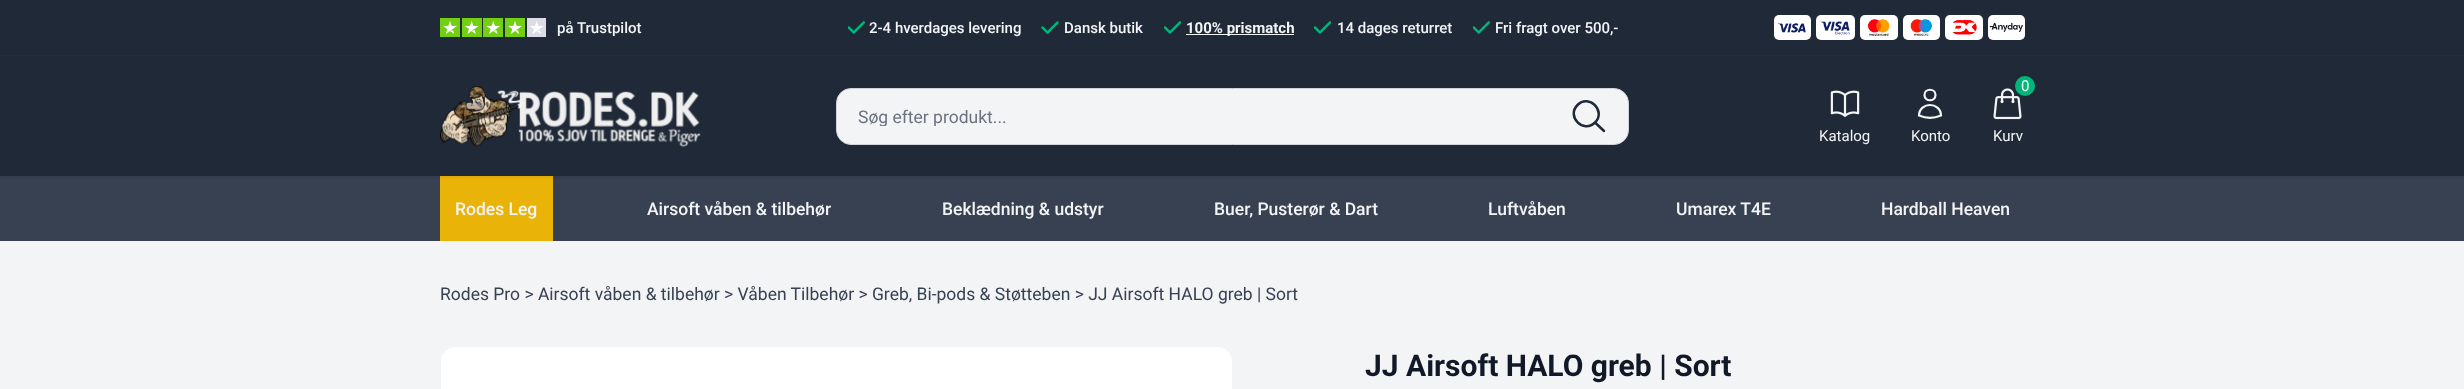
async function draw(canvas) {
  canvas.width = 2464;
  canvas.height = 389;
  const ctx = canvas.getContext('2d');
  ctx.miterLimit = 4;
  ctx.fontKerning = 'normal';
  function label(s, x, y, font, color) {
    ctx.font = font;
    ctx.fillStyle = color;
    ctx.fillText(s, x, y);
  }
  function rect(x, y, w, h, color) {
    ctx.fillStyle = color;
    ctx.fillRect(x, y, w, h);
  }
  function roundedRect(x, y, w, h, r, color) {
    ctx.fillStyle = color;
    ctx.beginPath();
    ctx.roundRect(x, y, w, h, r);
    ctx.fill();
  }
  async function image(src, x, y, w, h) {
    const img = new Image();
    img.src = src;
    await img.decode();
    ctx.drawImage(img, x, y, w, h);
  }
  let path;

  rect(0, 0, 2464, 389, '#f3f4f6');
  rect(0, 0, 2464, 55, '#1f2937');
  rect(0, 55, 2464, 1, '#232d3b');
  await image('assets/img1.png', 440, 18, 106, 19);
  label('på Trustpilot', 557, 33, '500 15px Roboto', '#f3f4f6');
  await image('assets/img2.png', 848, 21, 17, 13);
  label('2-4 hverdages levering', 869, 33, '500 15px Roboto', '#f3f4f6');
  await image('assets/img3.png', 1041, 21, 18, 13);
  label('Dansk butik', 1064, 33, '500 15px Roboto', '#f3f4f6');
  await image('assets/img4.png', 1164, 21, 17, 13);
  rect(1186, 34, 108, 1, '#f3f4f6');
  label('100% prismatch', 1186, 33, 'bold 15px Roboto', '#f3f4f6');
  await image('assets/img4.png', 1314, 21, 17, 13);
  label('14 dages returret', 1337, 33, '500 15px Roboto', '#f3f4f6');
  await image('assets/img2.png', 1473, 21, 17, 13);
  label('Fri fragt over 500,-', 1495, 33, '500 15px Roboto', '#f3f4f6');
  roundedRect(1774, 15, 37, 25, 5, '#fff');
  await image('assets/img5.png', 1777, 23, 29, 10);
  roundedRect(1816, 15, 39, 25, 5, '#fff');
  await image('assets/img6.png', 1820, 21, 30, 14);
  roundedRect(1860, 15, 38, 25, 5, '#fff');
  await image('assets/img7.png', 1867, 19, 23, 17);
  roundedRect(1903, 15, 37, 25, 5, '#fff');
  await image('assets/img8.png', 1910, 19, 23, 17);
  roundedRect(1945, 15, 38, 25, 5, '#fff');
  await image('assets/img9.png', 1952, 20, 25, 15);
  roundedRect(1988, 15, 37, 25, 5, '#fff');
  await image('assets/img10.png', 1989, 22, 34, 10);
  rect(0, 176, 2464, 65, '#374151');
  rect(440, 176, 113, 65, '#eab308');
  ctx.fillStyle = '#0000000d';
  ctx.filter = 'blur(1px)';
  ctx.beginPath();
  ctx.rect(0, 58, 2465, 120);
  ctx.fill();
  ctx.filter = 'none';
  rect(0, 56, 2464, 120, '#1f2937');
  await image('assets/img11.png', 440, 86, 261, 61);
  ctx.fillStyle = '#f3f4f6';
  ctx.beginPath();
  ctx.roundRect(836.5, 88.5, 792, 56, 14.5);
  ctx.fill();
  ctx.strokeStyle = '#d1d5db';
  ctx.stroke();
  ctx.save();
  ctx.beginPath();
  ctx.rect(858, 106, 720, 20);
  ctx.clip();
  label('Søg efter produkt...', 858, 123, '17.5px Roboto', '#6b7280');
  ctx.restore();
  path = new Path2D('M1604 131L1595 122.5M1595 122.5C1606.5 111 1589 93.5 1577.5 105C1566 116.5 1583.5 134 1595 122.5Z');
  ctx.strokeStyle = '#1f2937';
  ctx.lineWidth = 2.5;
  ctx.lineCap = 'round';
  ctx.lineJoin = 'round';
  ctx.stroke(path);
  await image('assets/img12.png', 1830, 90, 30, 27);
  label('Katalog', 1819, 141, '15px Roboto', '#f3f4f6');
  path = new Path2D('M1935.5 95C1935.5 102 1924.5 102 1924.5 95C1924.5 88 1935.5 88 1935.5 95ZM1919 115.5C1919.5 101.5 1940.5 101.5 1941 115.5C1934 118.5 1926 118.5 1919 115.5Z');
  ctx.strokeStyle = '#f3f4f6';
  ctx.lineWidth = 2.2;
  ctx.stroke(path);
  label('Konto', 1911, 141, '15px Roboto', '#f3f4f6');
  await image('assets/img13.png', 1993, 88, 29, 32);
  ctx.fillStyle = '#00b67a';
  ctx.beginPath();
  ctx.arc(2025, 86, 10, 0, 2 * Math.PI);
  ctx.fill();
  label('0', 2021, 91, '15px Roboto', '#fff');
  label('Kurv', 1993, 141, '15px Roboto', '#f3f4f6');
  label('Rodes Leg', 455, 215, '500 17.5px Roboto', '#f3f4f6');
  label('Airsoft våben & tilbehør', 647, 215, '500 17.5px Roboto', '#f3f4f6');
  label('Beklædning & udstyr', 942, 215, '500 17.5px Roboto', '#f3f4f6');
  label('Buer, Pusterør & Dart', 1214, 215, '500 17.5px Roboto', '#f3f4f6');
  label('Luftvåben', 1488, 215, '500 17.5px Roboto', '#f3f4f6');
  label('Umarex T4E', 1676, 215, '500 17.5px Roboto', '#f3f4f6');
  label('Hardball Heaven', 1881, 215, '500 17.5px Roboto', '#f3f4f6');
  label('Rodes Pro > Airsoft våben & tilbehør > Våben Tilbehør > Greb, Bi-pods & Støtteben > JJ Airsoft HALO greb | Sort', 440, 300, '17.5px Roboto', '#374151');
  ctx.fillStyle = '#fff';
  ctx.beginPath();
  ctx.roundRect(440.5, 346.5, 792, 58, 14.5);
  ctx.fill();
  ctx.lineWidth = 1;
  ctx.lineJoin = 'miter';
  ctx.stroke();
  label('JJ Airsoft HALO greb | Sort', 1365, 376, 'bold 30px Roboto', '#111827');
}

draw(document.querySelector('canvas'));
